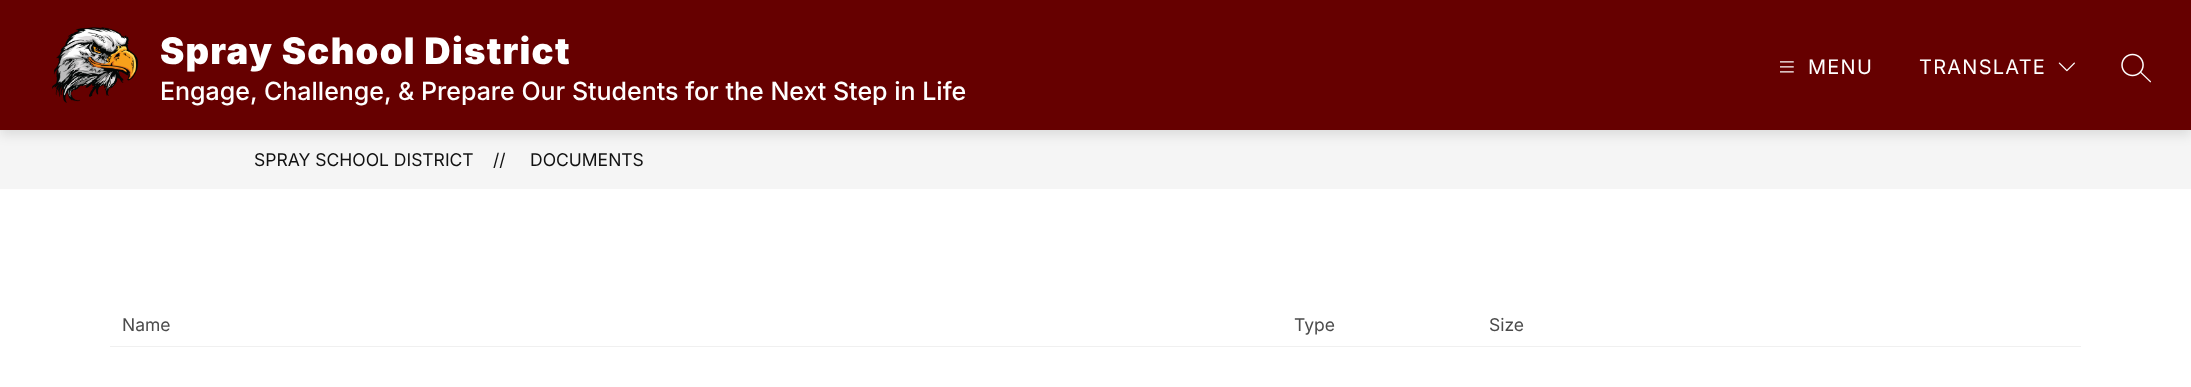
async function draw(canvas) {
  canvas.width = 2191;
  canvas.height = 387;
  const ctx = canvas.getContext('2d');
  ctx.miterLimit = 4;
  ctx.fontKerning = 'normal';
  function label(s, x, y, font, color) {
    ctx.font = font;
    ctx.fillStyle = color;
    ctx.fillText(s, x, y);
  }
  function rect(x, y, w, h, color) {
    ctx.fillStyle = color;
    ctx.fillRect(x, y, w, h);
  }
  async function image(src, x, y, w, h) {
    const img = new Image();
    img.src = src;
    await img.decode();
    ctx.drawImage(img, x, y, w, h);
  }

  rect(0, 0, 2191, 387, '#fff');
  rect(0, 130, 2191, 59, '#f5f5f5');
  ctx.fillStyle = '#0000001a';
  ctx.filter = 'blur(6px)';
  ctx.beginPath();
  ctx.rect(0, 5, 2191, 130);
  ctx.fill();
  ctx.filter = 'none';
  rect(0, 0, 2191, 130, '#600');
  await image('assets/img1.png', 52, 27, 86, 76);
  ctx.letterSpacing = '1.25px';
  label('Spray School District', 160, 64, '900 36.5px Inter', '#fff');
  ctx.letterSpacing = '0px';
  label('Engage, Challenge, & Prepare Our Students for the Next Step in Life', 160, 100, '500 25px Inter', '#fff');
  await image('assets/img2.png', 1780, 61, 14, 12);
  ctx.letterSpacing = '1.25px';
  label('MENU', 1808, 74, '20px Inter', '#fff');
  label('TRANSLATE', 1919, 74, '20px Inter', '#fff');
  await image('assets/img3.png', 2058, 62, 17, 10);
  await image('assets/img4.png', 2121, 53, 30, 30);
  ctx.letterSpacing = '0px';
  label('SPRAY SCHOOL DISTRICT', 254, 166, '17.5px Inter', '#111');
  label('//', 493, 166, '17.5px Inter', '#111');
  label('DOCUMENTS', 530, 166, '17.5px Inter', '#111');
  rect(110, 346, 1971, 1, '#f0f0f0');
  label('Name', 122, 331, '17.5px Inter', '#4c4c4c');
  label('Type', 1294, 331, '17.5px Inter', '#4c4c4c');
  label('Size', 1489, 331, '17.5px Inter', '#4c4c4c');
}

draw(document.querySelector('canvas'));
